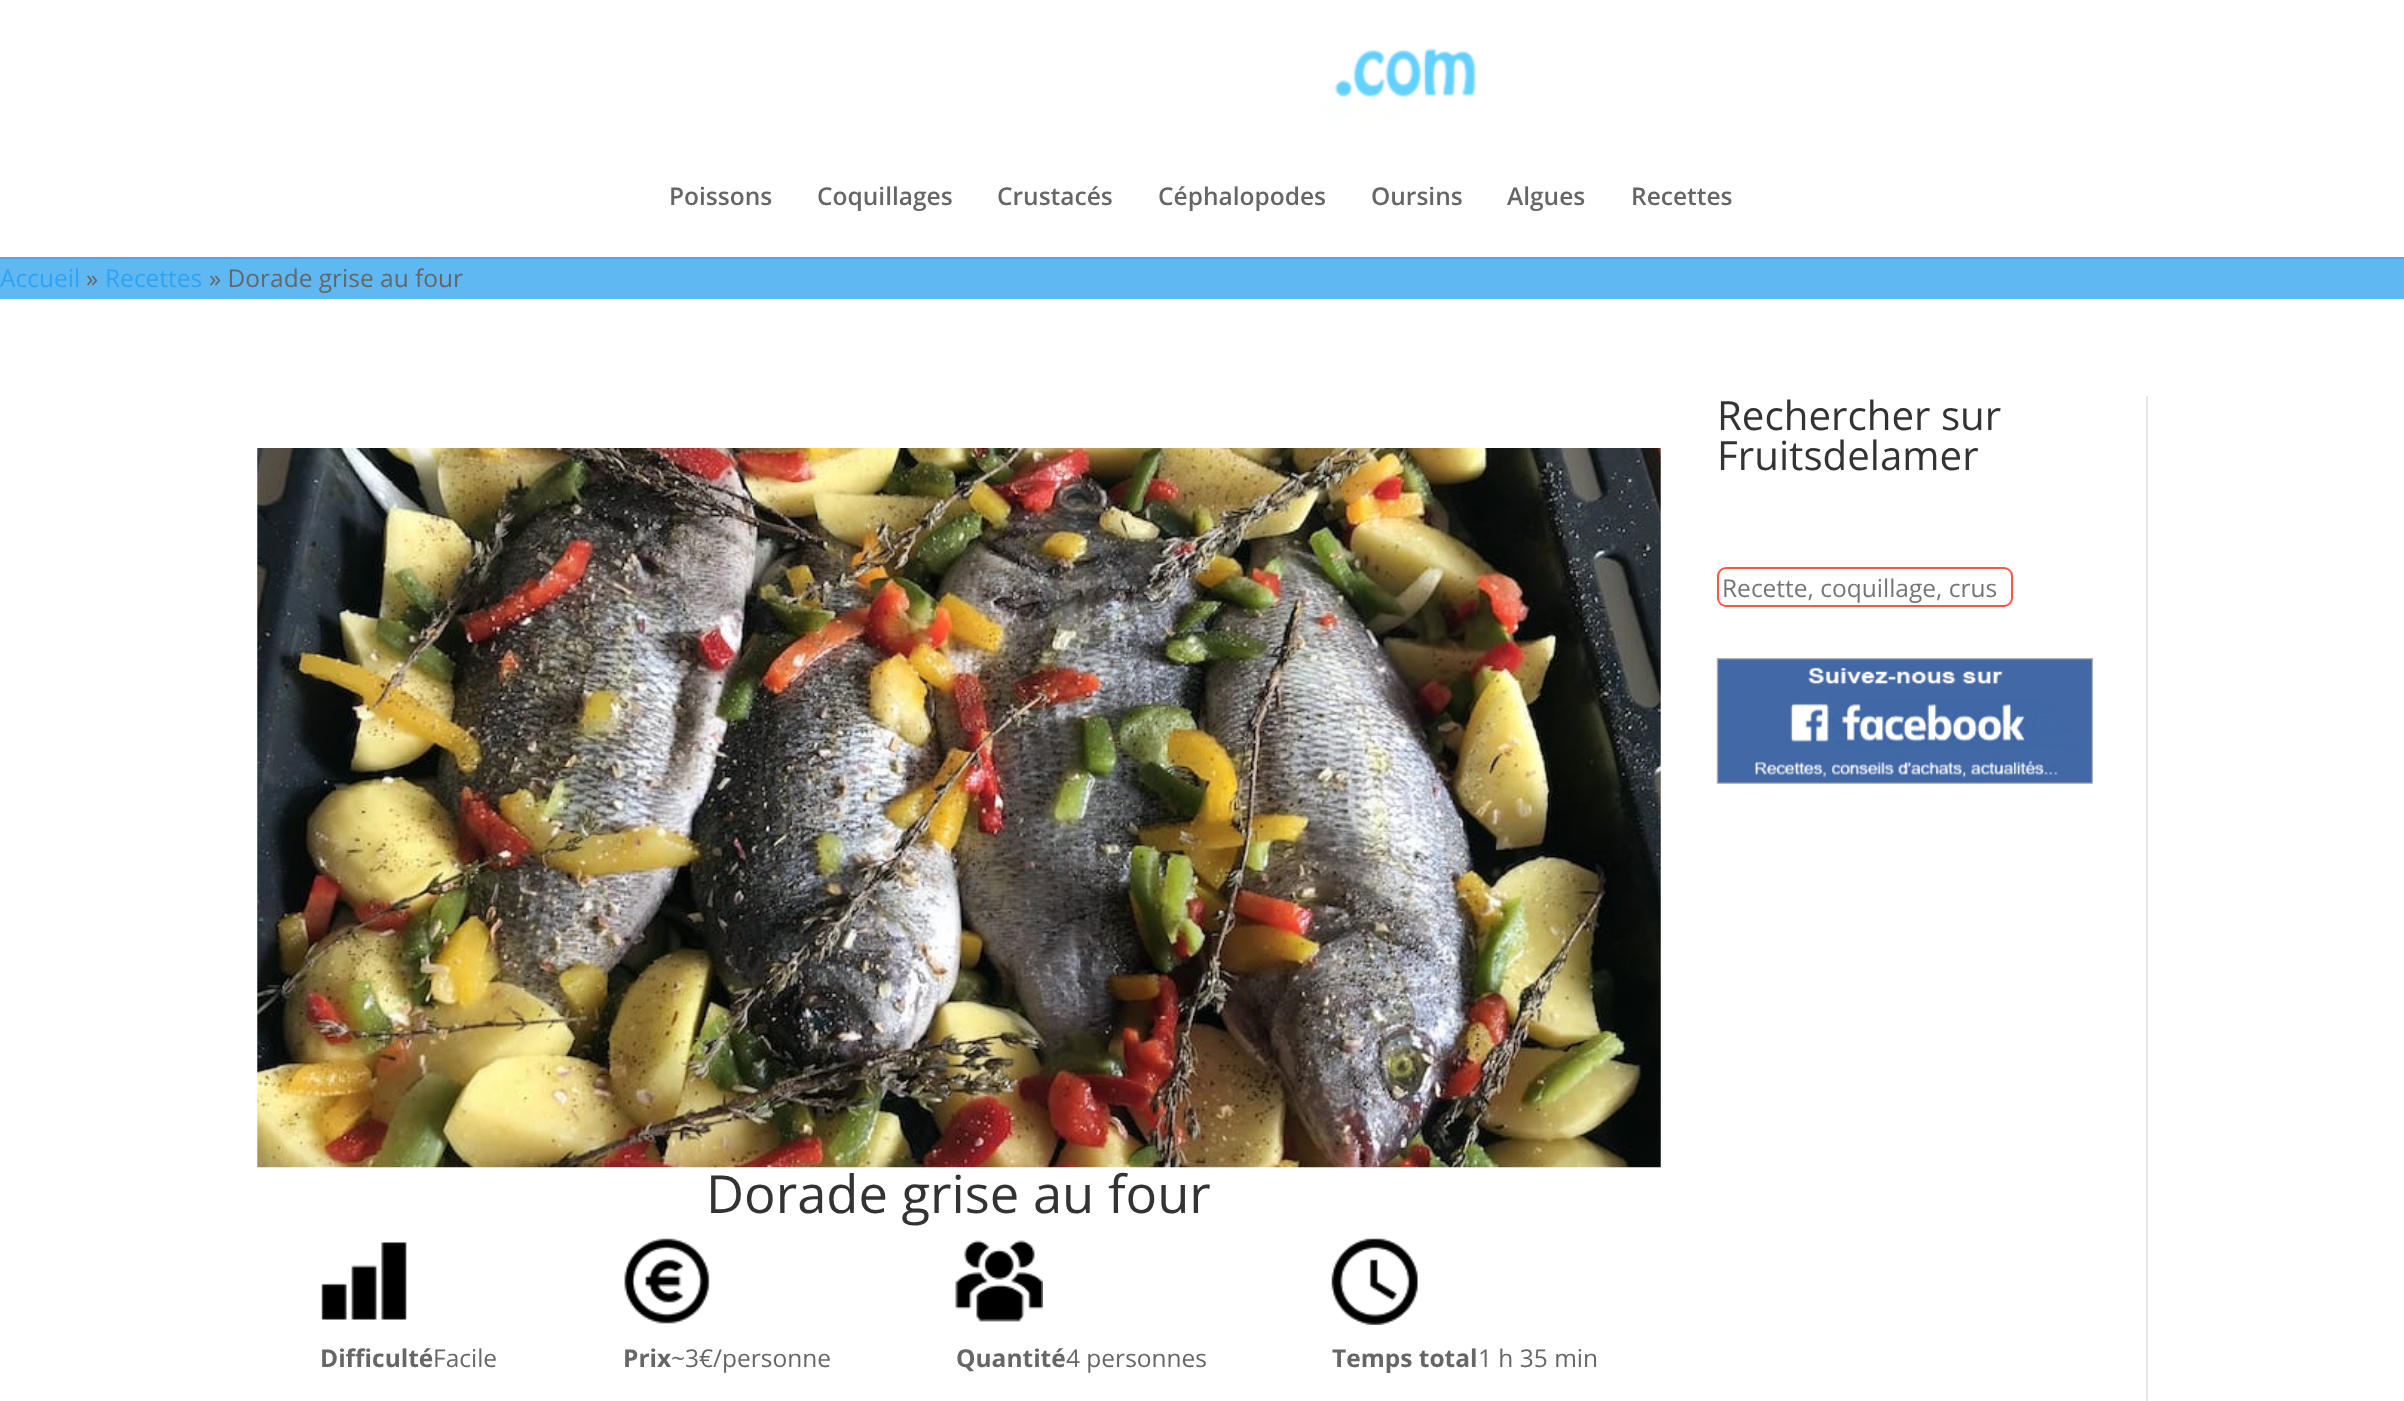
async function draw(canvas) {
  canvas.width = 2404;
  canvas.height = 1401;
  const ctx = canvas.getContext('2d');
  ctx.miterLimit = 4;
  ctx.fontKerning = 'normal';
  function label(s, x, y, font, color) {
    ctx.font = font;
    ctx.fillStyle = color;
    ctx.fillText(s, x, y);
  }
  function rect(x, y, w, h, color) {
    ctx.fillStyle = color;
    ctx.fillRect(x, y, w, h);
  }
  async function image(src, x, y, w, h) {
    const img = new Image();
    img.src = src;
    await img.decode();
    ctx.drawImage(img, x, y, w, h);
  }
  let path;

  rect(0, 0, 2404, 1401, '#60b8f2');
  ctx.fillStyle = '#56a6da';
  path = new Path2D('M0 257V259H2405V2H2404V257Z');
  ctx.fill(path);
  rect(0, 0, 2404, 257, '#fff');
  await image('assets/img1.png', 1322, 48, 155, 70);
  label('Poissons', 669, 205, '600 24.5px Open Sans', '#666');
  label('Coquillages', 817, 205, '600 24.5px Open Sans', '#666');
  label('Crustacés', 997, 205, '600 24.5px Open Sans', '#666');
  label('Céphalopodes', 1158, 205, '600 24.5px Open Sans', '#666');
  label('Oursins', 1371, 205, '600 24.5px Open Sans', '#666');
  label('Algues', 1507, 205, '600 24.5px Open Sans', '#666');
  label('Recettes', 1631, 205, '600 24.5px Open Sans', '#666');
  label('Accueil', 0, 287, '24.5px Open Sans', '#2ea3f2');
  label('»', 86, 287, '24.5px Open Sans', '#666');
  label('Recettes', 105, 287, '24.5px Open Sans', '#2ea3f2');
  label('» Dorade grise au four', 209, 287, '24.5px Open Sans', '#666');
  rect(0, 299, 2404, 1102, '#fff');
  rect(2146, 396, 2, 1005, '#e6e6e6');
  label('Rechercher sur', 1717, 430, '40.25px Open Sans', '#333');
  label('Fruitsdelamer', 1717, 470, '40.25px Open Sans', '#333');
  ctx.beginPath();
  ctx.roundRect(1718, 568, 294, 38, 8);
  ctx.strokeStyle = '#fd5444';
  ctx.lineWidth = 2;
  ctx.stroke();
  label('Recette, coquillage, crus', 1722, 597, '24.5px Open Sans', '#757575');
  await image('assets/img2.png', 1716, 658, 377, 126);
  await image('assets/img3.png', 257, 448, 1404, 720);
  label('Dorade grise au four', 706, 1213, '52.5px Open Sans', '#333');
  await image('assets/img4.png', 321, 1242, 86, 78);
  label('Difficulté', 320, 1367, 'bold 24.5px Open Sans', '#666');
  label('Facile', 433, 1367, '24.5px Open Sans', '#666');
  await image('assets/img5.png', 624, 1238, 86, 86);
  label('Prix', 623, 1367, 'bold 24.5px Open Sans', '#666');
  label('~3€/personne', 671, 1367, '24.5px Open Sans', '#666');
  await image('assets/img6.png', 955, 1240, 88, 82);
  label('Quantité', 956, 1367, 'bold 24.5px Open Sans', '#666');
  label('4 personnes', 1066, 1367, '24.5px Open Sans', '#666');
  await image('assets/img7.png', 1331, 1238, 87, 87);
  label('Temps total', 1332, 1367, 'bold 24.5px Open Sans', '#666');
  label('1 h 35 min', 1478, 1367, '24.5px Open Sans', '#666');
}

draw(document.querySelector('canvas'));
